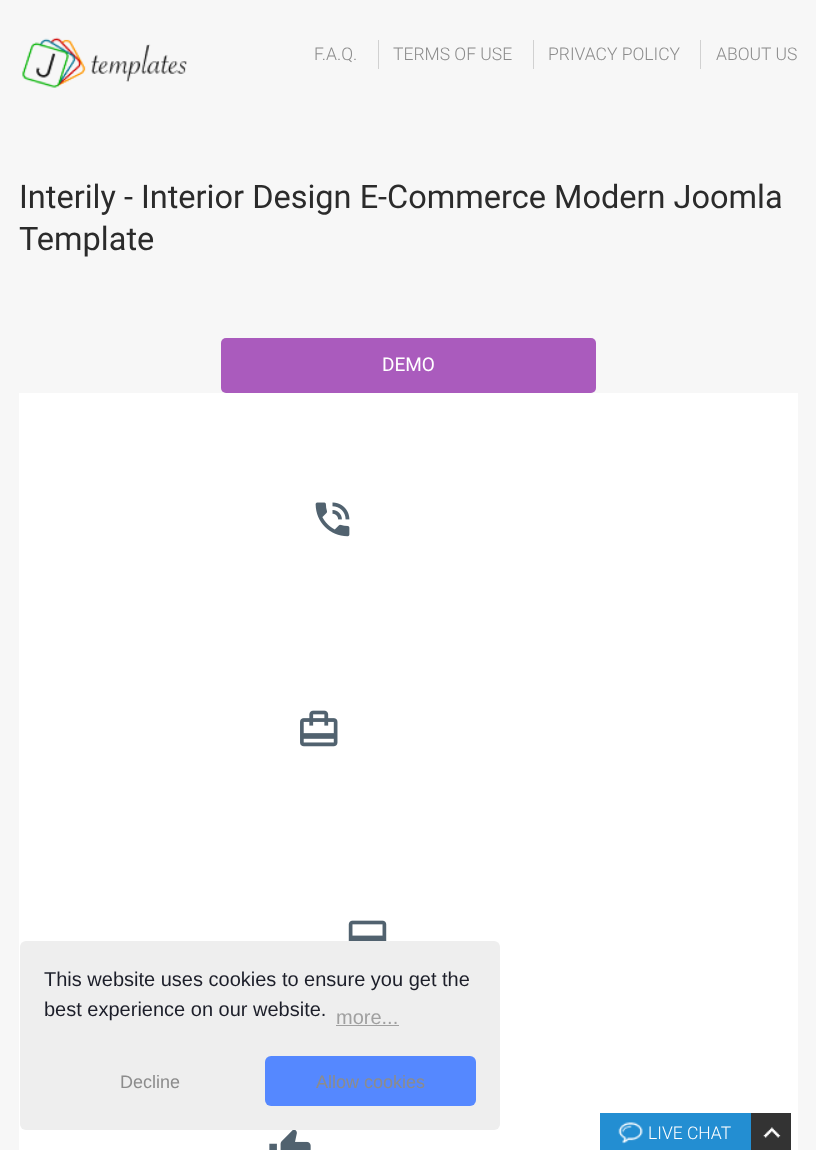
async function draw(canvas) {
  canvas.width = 816;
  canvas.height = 1150;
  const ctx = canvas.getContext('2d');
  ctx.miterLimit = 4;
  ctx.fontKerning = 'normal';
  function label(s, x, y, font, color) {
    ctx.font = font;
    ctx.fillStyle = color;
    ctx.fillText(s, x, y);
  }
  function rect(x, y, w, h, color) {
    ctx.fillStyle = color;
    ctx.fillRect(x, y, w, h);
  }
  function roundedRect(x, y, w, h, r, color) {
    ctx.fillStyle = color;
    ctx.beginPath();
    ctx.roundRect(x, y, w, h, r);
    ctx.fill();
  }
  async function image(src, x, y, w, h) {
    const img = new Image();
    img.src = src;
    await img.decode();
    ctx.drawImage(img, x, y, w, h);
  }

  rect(0, 0, 816, 1150, '#f7f7f7');
  await image('assets/img1.png', 22, 37, 165, 51);
  label('F.A.Q.', 314, 60, '300 17.5px Roboto', '#8c8c8c');
  rect(378, 40, 1, 29, '#d1d1d1');
  label('TERMS OF USE', 393, 60, '300 17.5px Roboto', '#8c8c8c');
  rect(533, 40, 1, 29, '#d1d1d1');
  label('PRIVACY POLICY', 548, 60, '300 17.5px Roboto', '#8c8c8c');
  rect(700, 40, 1, 29, '#d1d1d1');
  label('ABOUT US', 716, 60, '300 17.5px Roboto', '#8c8c8c');
  label('Interily - Interior Design E-Commerce Modern Joomla', 19, 208, '32.5px Roboto', '#2b2b2b');
  label('Template', 19, 250, '32.5px Roboto', '#2b2b2b');
  roundedRect(221, 338, 375, 55, 5, '#aa5bbd');
  label('DEMO', 382, 371, '19px Roboto', '#fff');
  rect(19, 393, 779, 757, '#fff');
  await image('assets/img2.png', 315, 502, 35, 35);
  await image('assets/img3.png', 300, 710, 38, 37);
  await image('assets/img4.png', 348, 920, 39, 21);
  await image('assets/img5.png', 269, 1130, 42, 20);
  roundedRect(20, 941, 480, 189, 6, '#eee');
  label('This website uses cookies to ensure you get the', 44, 986, '20px Liberation Sans', '#1c1e29');
  label('best experience on our website.', 44, 1016, '20px Liberation Sans', '#1c1e29');
  label('more...', 336, 1024, '20px Liberation Sans', '#a0a0a0');
  rect(336, 1025, 63, 1, '#a0a0a0');
  label('Decline', 120, 1088, '18px Liberation Sans', '#8c8c8c');
  roundedRect(265, 1056, 211, 50, 6, '#58f');
  label('Allow cookies', 316, 1088, '18px Liberation Sans', '#8c8c8c');
  rect(600, 1113, 151, 37, '#238ed2');
  await image('assets/img6.png', 618, 1122, 25, 22);
  label('LIVE CHAT', 648, 1139, '300 17.5px Roboto', '#fff');
  rect(751, 1113, 40, 37, '#333');
  await image('assets/img7.png', 763, 1127, 18, 11);
}

draw(document.querySelector('canvas'));
